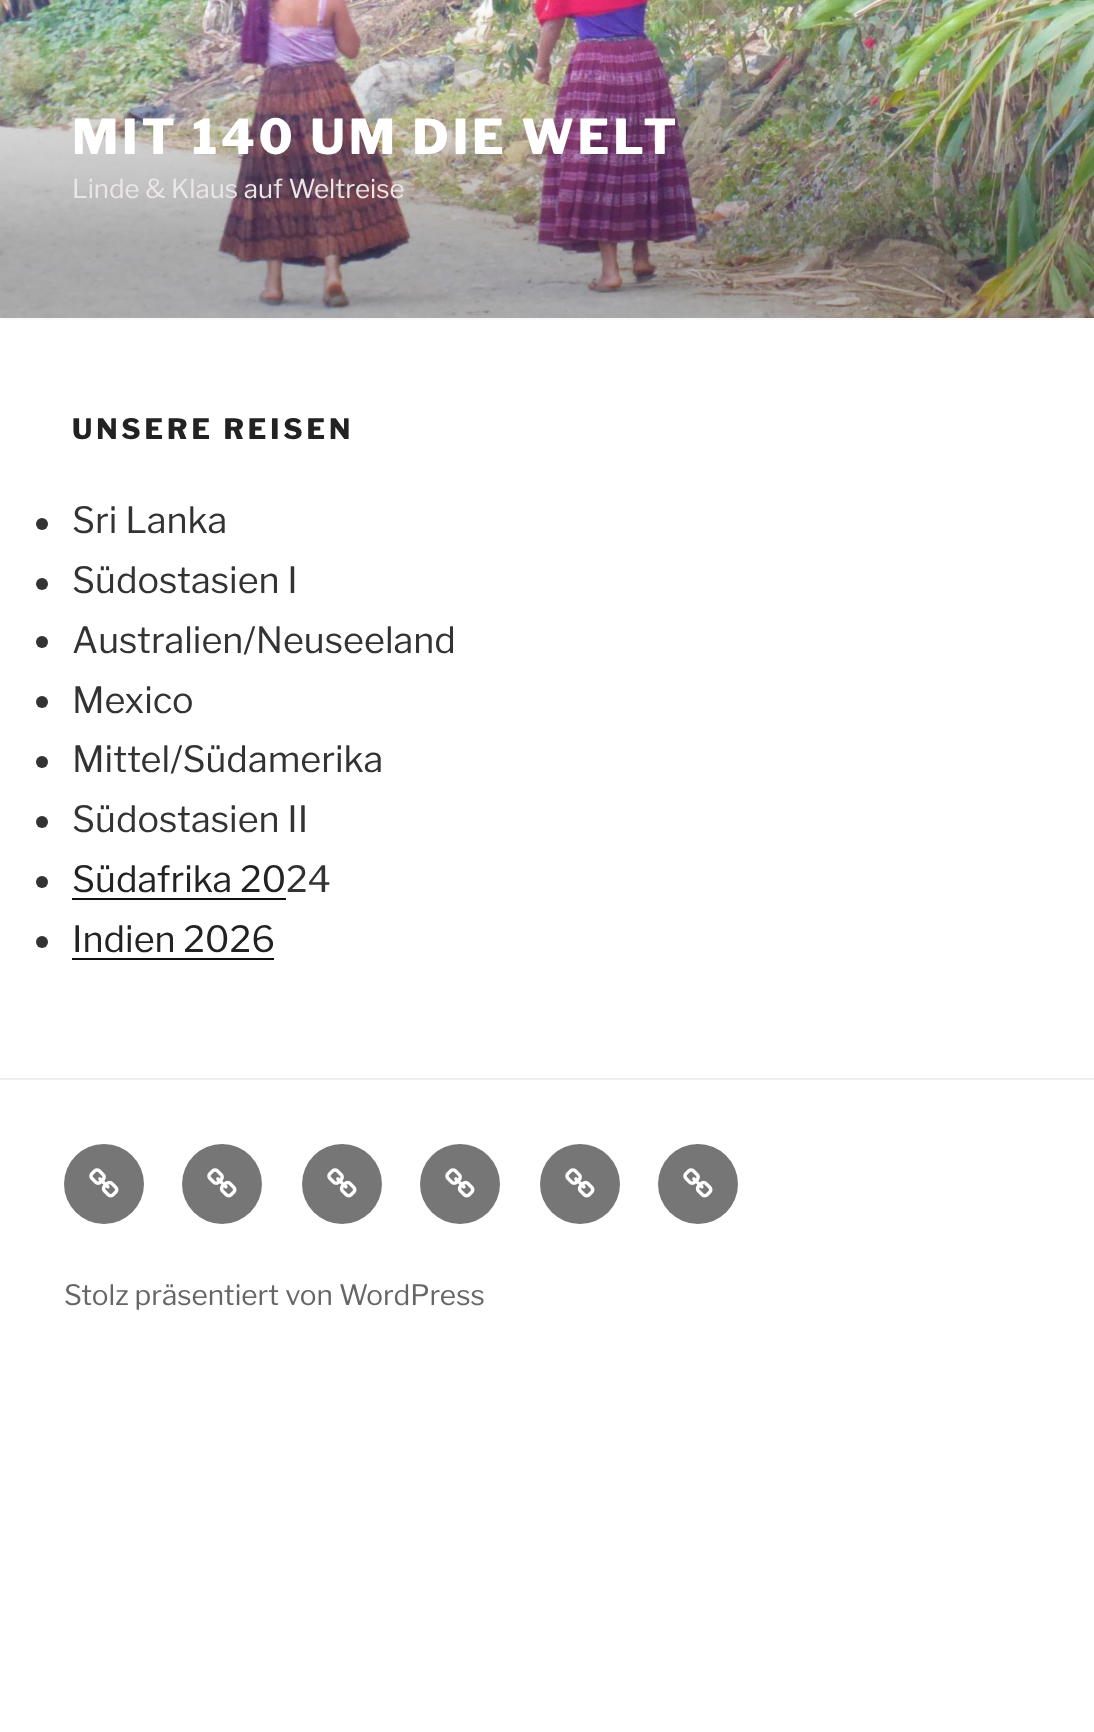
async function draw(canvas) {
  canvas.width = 1094;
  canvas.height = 1732;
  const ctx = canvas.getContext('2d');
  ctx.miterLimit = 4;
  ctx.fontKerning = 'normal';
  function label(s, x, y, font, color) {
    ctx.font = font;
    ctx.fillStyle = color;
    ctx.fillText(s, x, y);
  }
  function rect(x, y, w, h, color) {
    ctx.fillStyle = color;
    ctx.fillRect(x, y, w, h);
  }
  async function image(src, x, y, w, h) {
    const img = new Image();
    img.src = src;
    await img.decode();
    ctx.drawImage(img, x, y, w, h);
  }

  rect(0, 0, 1094, 1732, '#fff');
  rect(0, 318, 1094, 2, '#fafafa');
  await image('assets/img1.png', 0, 0, 1094, 318);
  ctx.letterSpacing = '3.8px';
  label('MIT 140 UM DIE WELT', 72, 154, '100 48px Libre Franklin', '#fff');
  ctx.letterSpacing = '0px';
  label('Linde & Klaus auf Weltreise', 72, 198, '100 26px "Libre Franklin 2"', '#eae6e8');
  ctx.letterSpacing = '3.9px';
  label('UNSERE REISEN', 72, 439, '100 28px Libre Franklin', '#222');
  ctx.fillStyle = '#333';
  ctx.beginPath();
  ctx.arc(42, 524, 6, 0, 2 * Math.PI);
  ctx.fill();
  ctx.letterSpacing = '0px';
  label('Sri Lanka', 72, 533, '100 36px "Libre Franklin 2"', '#333');
  ctx.beginPath();
  ctx.arc(42, 584, 6, 0, 2 * Math.PI);
  ctx.fill();
  label('Südostasien I', 72, 593, '100 36px "Libre Franklin 2"', '#333');
  ctx.beginPath();
  ctx.arc(42, 642, 6, 0, 2 * Math.PI);
  ctx.fill();
  label('Australien/Neuseeland', 72, 653, '100 36px "Libre Franklin 2"', '#333');
  ctx.beginPath();
  ctx.arc(42, 702, 6, 0, 2 * Math.PI);
  ctx.fill();
  label('Mexico', 72, 713, '100 36px "Libre Franklin 2"', '#333');
  ctx.beginPath();
  ctx.arc(42, 762, 6, 0, 2 * Math.PI);
  ctx.fill();
  label('Mittel/Südamerika', 72, 772, '100 36px "Libre Franklin 2"', '#333');
  ctx.beginPath();
  ctx.arc(42, 822, 6, 0, 2 * Math.PI);
  ctx.fill();
  label('Südostasien II', 72, 832, '100 36px "Libre Franklin 2"', '#333');
  ctx.beginPath();
  ctx.arc(42, 882, 6, 0, 2 * Math.PI);
  ctx.fill();
  label('Südafrika 20', 72, 892, '100 36px "Libre Franklin 2"', '#222');
  rect(72, 898, 214, 2, '#0f0f0f');
  label('24', 286, 892, '100 36px "Libre Franklin 2"', '#333');
  ctx.beginPath();
  ctx.arc(42, 942, 6, 0, 2 * Math.PI);
  ctx.fill();
  label('Indien 2026', 72, 952, '100 36px "Libre Franklin 2"', '#222');
  rect(72, 958, 202, 2, '#0f0f0f');
  rect(0, 1078, 1094, 2, '#eee');
  ctx.fillStyle = '#767676';
  ctx.beginPath();
  ctx.arc(104, 1184, 40, 0, 2 * Math.PI);
  ctx.fill();
  await image('assets/img2.png', 89, 1168, 30, 30);
  ctx.beginPath();
  ctx.arc(222, 1184, 40, 0, 2 * Math.PI);
  ctx.fill();
  await image('assets/img2.png', 207, 1168, 30, 30);
  ctx.beginPath();
  ctx.arc(342, 1184, 40, 0, 2 * Math.PI);
  ctx.fill();
  await image('assets/img2.png', 327, 1168, 30, 30);
  ctx.beginPath();
  ctx.arc(460, 1184, 40, 0, 2 * Math.PI);
  ctx.fill();
  await image('assets/img2.png', 445, 1168, 30, 30);
  ctx.beginPath();
  ctx.arc(580, 1184, 40, 0, 2 * Math.PI);
  ctx.fill();
  await image('assets/img2.png', 565, 1168, 30, 30);
  ctx.beginPath();
  ctx.arc(698, 1184, 40, 0, 2 * Math.PI);
  ctx.fill();
  await image('assets/img2.png', 683, 1168, 30, 30);
  label('Stolz präsentiert von WordPress', 64, 1305, '100 28px "Libre Franklin 2"', '#666');
}

draw(document.querySelector('canvas'));
